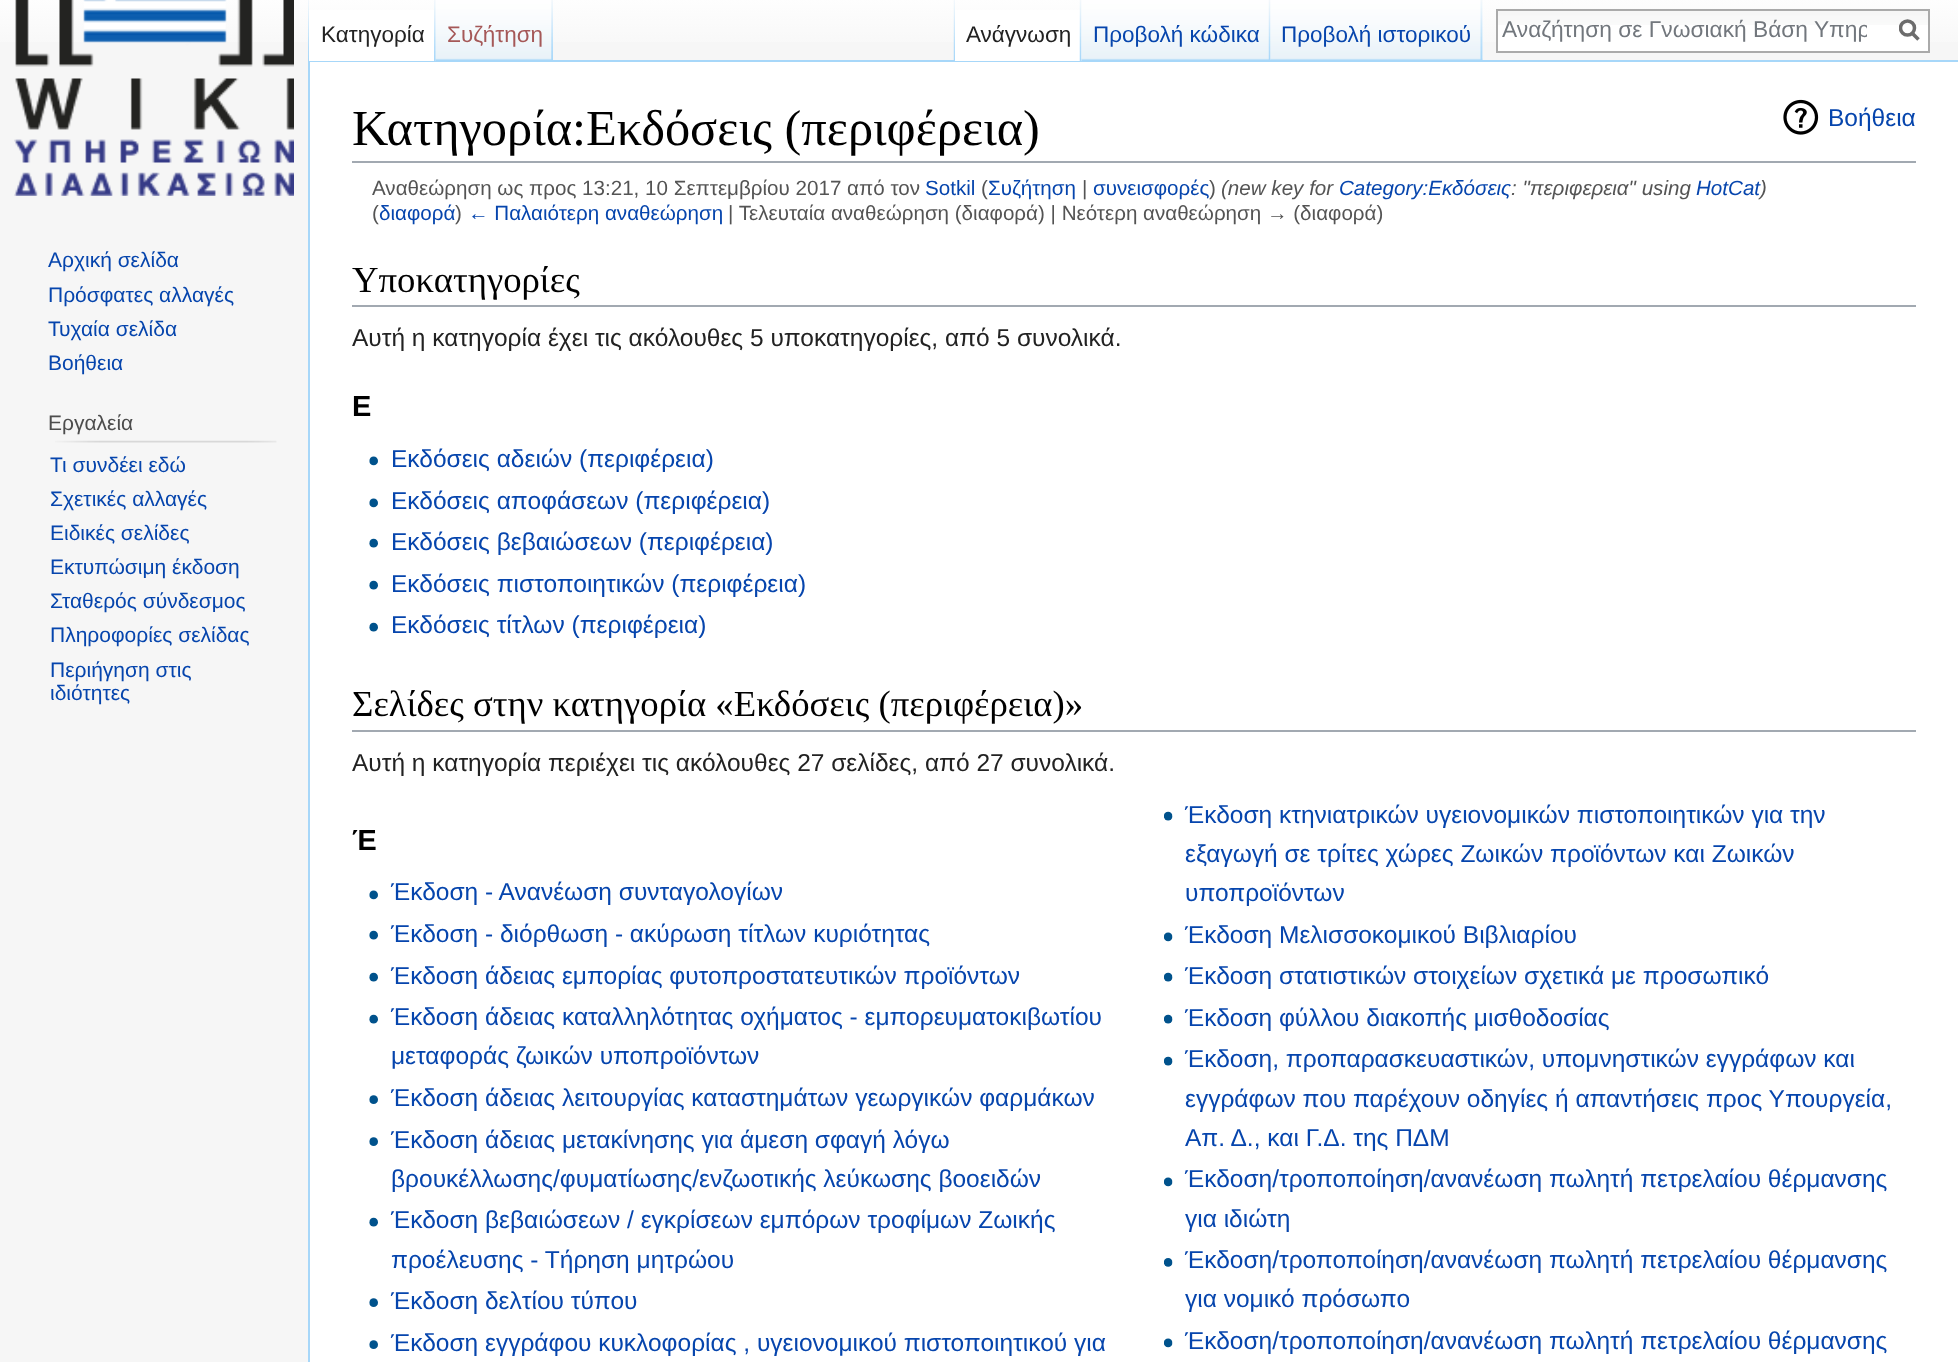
async function draw(canvas) {
  canvas.width = 1958;
  canvas.height = 1362;
  const ctx = canvas.getContext('2d');
  ctx.miterLimit = 4;
  ctx.fontKerning = 'normal';
  function label(s, x, y, font, color) {
    ctx.font = font;
    ctx.fillStyle = color;
    ctx.fillText(s, x, y);
  }
  function rect(x, y, w, h, color) {
    ctx.fillStyle = color;
    ctx.fillRect(x, y, w, h);
  }
  async function image(src, x, y, w, h) {
    const img = new Image();
    img.src = src;
    await img.decode();
    ctx.drawImage(img, x, y, w, h);
  }
  let gradient, path;

  rect(0, 0, 1958, 1362, '#f6f6f6');
  gradient = ctx.createLinearGradient(979, -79, 979, 61);
  gradient.addColorStop(0.5, '#fff');
  gradient.addColorStop(1, '#f6f6f6');
  ctx.fillStyle = gradient;
  ctx.fillRect(0, 0, 1958, 42);
  await image('assets/img1.png', 308, 0, 1, 60);
  rect(308, 60, 1650, 2, '#a7d7f9');
  rect(308, 60, 2, 1302, '#a7d7f9');
  rect(309, 10, 127, 51, '#fff');
  await image('assets/img2.png', 434, 0, 2, 61);
  label('Κατηγορία', 321, 42, '22.5px Liberation Sans', '#222');
  await image('assets/img3.png', 435, 0, 118, 61);
  await image('assets/img4.png', 551, 0, 2, 60);
  label('Συζήτηση', 447, 42, '22.5px Liberation Sans', '#a55858');
  await image('assets/img5.png', 953, 0, 2, 60);
  await image('assets/img6.png', 1482, 0, 1, 60);
  rect(955, 10, 127, 51, '#fff');
  await image('assets/img7.png', 1079, 0, 3, 61);
  label('Ανάγνωση', 966, 42, '22.5px Liberation Sans', '#222');
  await image('assets/img8.png', 1081, 0, 190, 61);
  await image('assets/img9.png', 1268, 0, 3, 61);
  label('Προβολή κώδικα', 1093, 42, '22.5px Liberation Sans', '#0645ad');
  await image('assets/img10.png', 1270, 0, 213, 61);
  await image('assets/img11.png', 1480, 0, 3, 60);
  label('Προβολή ιστορικού', 1281, 42, '22.5px Liberation Sans', '#0645ad');
  rect(1498, 25, 430, 26, '#fff');
  await image('assets/img12.png', 1498, 11, 430, 14);
  ctx.strokeStyle = '#aaa';
  ctx.lineWidth = 2;
  ctx.strokeRect(1497, 10, 432, 42);
  ctx.save();
  ctx.beginPath();
  ctx.rect(1502, 16, 365, 26);
  ctx.clip();
  label('Αναζήτηση σε Γνωσιακή Βάση Υπηρ', 1502, 37, '22.75px Liberation Sans', '#72777d');
  ctx.restore();
  path = new Path2D('M1918.5 39.5L1911.5 32.5');
  ctx.strokeStyle = '#6c6c6c';
  ctx.lineWidth = 3.5;
  ctx.stroke(path);
  ctx.save();
  ctx.beginPath();
  ctx.rect(1899, 19, 21, 23);
  ctx.clip();
  ctx.beginPath();
  ctx.arc(1907.5, 28, 7, 0, 2 * Math.PI);
  ctx.stroke();
  ctx.restore();
  await image('assets/img13.png', 14, 0, 280, 196);
  label('Αρχική σελίδα', 48, 267, '21px Liberation Sans', '#0645ad');
  label('Πρόσφατες αλλαγές', 48, 302, '21px Liberation Sans', '#0645ad');
  label('Τυχαία σελίδα', 48, 336, '21px Liberation Sans', '#0645ad');
  label('Βοήθεια', 48, 370, '21px Liberation Sans', '#0645ad');
  label('Εργαλεία', 48, 430, '21px Liberation Sans', '#4d4d4d');
  await image('assets/img14.png', 55, 440, 222, 3);
  label('Τι συνδέει εδώ', 50, 472, '21px Liberation Sans', '#0645ad');
  label('Σχετικές αλλαγές', 50, 506, '21px Liberation Sans', '#0645ad');
  label('Ειδικές σελίδες', 50, 540, '21px Liberation Sans', '#0645ad');
  label('Εκτυπώσιμη έκδοση', 50, 574, '21px Liberation Sans', '#0645ad');
  label('Σταθερός σύνδεσμος', 50, 608, '21px Liberation Sans', '#0645ad');
  label('Πληροφορίες σελίδας', 50, 642, '21px Liberation Sans', '#0645ad');
  label('Περιήγηση στις', 50, 677, '21px Liberation Sans', '#0645ad');
  label('ιδιότητες', 50, 700, '21px Liberation Sans', '#0645ad');
  rect(310, 62, 1648, 1300, '#fff');
  rect(352, 161, 1564, 2, '#a2a9b1');
  label('Κατηγορία:Εκδόσεις (περιφέρεια)', 352, 145, '50.4px Liberation Serif', '#000');
  await image('assets/img15.png', 1783, 99, 36, 36);
  label('Βοήθεια', 1828, 126, '24.5px Liberation Sans', '#0645ad');
  label('Αναθεώρηση ως προς 13:21, 10 Σεπτεμβρίου 2017 από τον', 372, 195, '20.6px Liberation Sans', '#545454');
  label('Sotkil', 925, 195, '20.6px Liberation Sans', '#0645ad');
  label('(', 981, 195, '20.6px Liberation Sans', '#545454');
  label('Συζήτηση', 988, 195, '20.6px Liberation Sans', '#0645ad');
  label('|', 1082, 195, '20.6px Liberation Sans', '#545454');
  label('συνεισφορές', 1093, 195, '20.6px Liberation Sans', '#0645ad');
  label(')', 1209, 195, '20.6px Liberation Sans', '#545454');
  label('(new key for', 1221, 195, 'italic 20.6px Liberation Sans', '#545454');
  label('Category:Εκδόσεις', 1339, 195, 'italic 20.6px Liberation Sans', '#0645ad');
  label(': "περιφερεια" using', 1511, 195, 'italic 20.6px Liberation Sans', '#545454');
  label('HotCat', 1696, 195, 'italic 20.6px Liberation Sans', '#0645ad');
  label(')', 1760, 195, 'italic 20.6px Liberation Sans', '#545454');
  label('(', 372, 220, '20.6px Liberation Sans', '#545454');
  label('διαφορά', 379, 220, '20.6px Liberation Sans', '#0645ad');
  label(')', 455, 220, '20.6px Liberation Sans', '#545454');
  label('← Παλαιότερη αναθεώρηση', 468, 220, '20.6px Liberation Sans', '#0645ad');
  label('| Τελευταία αναθεώρηση (διαφορά) | Νεότερη αναθεώρηση → (διαφορά)', 728, 220, '20.6px Liberation Sans', '#545454');
  rect(352, 305, 1564, 2, '#a2a9b1');
  label('Υποκατηγορίες', 352, 292, '36.75px Liberation Serif', '#000');
  label('Αυτή η κατηγορία έχει τις ακόλουθες 5 υποκατηγορίες, από 5 συνολικά.', 352, 346, '24.5px Liberation Sans', '#222');
  label('Ε', 352, 416, 'bold 29px Liberation Sans', '#000');
  await image('assets/img16.png', 369, 456, 9, 10);
  label('Εκδόσεις αδειών (περιφέρεια)', 391, 467, '24.5px Liberation Sans', '#0645ad');
  await image('assets/img16.png', 369, 498, 9, 10);
  label('Εκδόσεις αποφάσεων (περιφέρεια)', 391, 509, '24.5px Liberation Sans', '#0645ad');
  await image('assets/img17.png', 369, 538, 9, 10);
  label('Εκδόσεις βεβαιώσεων (περιφέρεια)', 391, 550, '24.5px Liberation Sans', '#0645ad');
  await image('assets/img17.png', 369, 580, 9, 10);
  label('Εκδόσεις πιστοποιητικών (περιφέρεια)', 391, 592, '24.5px Liberation Sans', '#0645ad');
  await image('assets/img17.png', 369, 622, 9, 10);
  label('Εκδόσεις τίτλων (περιφέρεια)', 391, 633, '24.5px Liberation Sans', '#0645ad');
  rect(352, 730, 1564, 2, '#a2a9b1');
  label('Σελίδες στην κατηγορία «Εκδόσεις (περιφέρεια)»', 352, 716, '36.75px Liberation Serif', '#000');
  label('Αυτή η κατηγορία περιέχει τις ακόλουθες 27 σελίδες, από 27 συνολικά.', 352, 771, '24.5px Liberation Sans', '#222');
  label('Έ', 352, 850, 'bold 29px Liberation Sans', '#000');
  await image('assets/img16.png', 369, 890, 9, 10);
  label('Έκδοση - Ανανέωση συνταγολογίων', 391, 900, '24.5px Liberation Sans', '#0645ad');
  await image('assets/img18.png', 1164, 811, 9, 10);
  label('Έκδοση κτηνιατρικών υγειονομικών πιστοποιητικών για την', 1185, 823, '24.5px Liberation Sans', '#0645ad');
  label('εξαγωγή σε τρίτες χώρες Ζωικών προϊόντων και Ζωικών', 1185, 862, '24.5px Liberation Sans', '#0645ad');
  label('υποπροϊόντων', 1185, 901, '24.5px Liberation Sans', '#0645ad');
  await image('assets/img19.png', 369, 930, 9, 10);
  label('Έκδοση - διόρθωση - ακύρωση τίτλων κυριότητας', 391, 942, '24.5px Liberation Sans', '#0645ad');
  await image('assets/img20.png', 1164, 932, 9, 10);
  label('Έκδοση Μελισσοκομικού Βιβλιαρίου', 1185, 943, '24.5px Liberation Sans', '#0645ad');
  await image('assets/img17.png', 369, 972, 9, 10);
  label('Έκδοση άδειας εμπορίας φυτοπροστατευτικών προϊόντων', 391, 984, '24.5px Liberation Sans', '#0645ad');
  await image('assets/img18.png', 1164, 972, 9, 10);
  label('Έκδοση στατιστικών στοιχείων σχετικά με προσωπικό', 1185, 984, '24.5px Liberation Sans', '#0645ad');
  await image('assets/img17.png', 369, 1014, 9, 10);
  label('Έκδοση άδειας καταλληλότητας οχήματος - εμπορευματοκιβωτίου', 391, 1025, '24.5px Liberation Sans', '#0645ad');
  label('μεταφοράς ζωικών υποπροϊόντων', 391, 1064, '24.5px Liberation Sans', '#0645ad');
  await image('assets/img18.png', 1164, 1014, 9, 10);
  label('Έκδοση φύλλου διακοπής μισθοδοσίας', 1185, 1026, '24.5px Liberation Sans', '#0645ad');
  await image('assets/img21.png', 369, 1095, 9, 9);
  label('Έκδοση άδειας λειτουργίας καταστημάτων γεωργικών φαρμάκων', 391, 1106, '24.5px Liberation Sans', '#0645ad');
  await image('assets/img18.png', 1164, 1056, 9, 10);
  label('Έκδοση, προπαρασκευαστικών, υπομνηστικών εγγράφων και', 1185, 1067, '24.5px Liberation Sans', '#0645ad');
  label('εγγράφων που παρέχουν οδηγίες ή απαντήσεις προς Υπουργεία,', 1185, 1107, '24.5px Liberation Sans', '#0645ad');
  label('Απ. Δ., και Γ.Δ. της ΠΔΜ', 1185, 1146, '24.5px Liberation Sans', '#0645ad');
  await image('assets/img21.png', 369, 1137, 9, 9);
  label('Έκδοση άδειας μετακίνησης για άμεση σφαγή λόγω', 391, 1148, '24.5px Liberation Sans', '#0645ad');
  label('βρουκέλλωσης/φυματίωσης/ενζωοτικής λεύκωσης βοοειδών', 391, 1187, '24.5px Liberation Sans', '#0645ad');
  await image('assets/img22.png', 1164, 1177, 9, 10);
  label('Έκδοση/τροποποίηση/ανανέωση πωλητή πετρελαίου θέρμανσης', 1185, 1187, '24.5px Liberation Sans', '#0645ad');
  label('για ιδιώτη', 1185, 1227, '24.5px Liberation Sans', '#0645ad');
  await image('assets/img17.png', 369, 1217, 9, 10);
  label('Έκδοση βεβαιώσεων / εγκρίσεων εμπόρων τροφίμων Ζωικής', 391, 1228, '24.5px Liberation Sans', '#0645ad');
  label('προέλευσης - Τήρηση μητρώου', 391, 1268, '24.5px Liberation Sans', '#0645ad');
  await image('assets/img21.png', 369, 1298, 9, 9);
  label('Έκδοση δελτίου τύπου', 391, 1309, '24.5px Liberation Sans', '#0645ad');
  await image('assets/img23.png', 1164, 1258, 9, 9);
  label('Έκδοση/τροποποίηση/ανανέωση πωλητή πετρελαίου θέρμανσης', 1185, 1268, '24.5px Liberation Sans', '#0645ad');
  label('για νομικό πρόσωπο', 1185, 1307, '24.5px Liberation Sans', '#0645ad');
  await image('assets/img21.png', 369, 1340, 9, 9);
  label('Έκδοση εγγράφου κυκλοφορίας , υγειονομικού πιστοποιητικού για', 391, 1351, '24.5px Liberation Sans', '#0645ad');
  await image('assets/img22.png', 1164, 1338, 9, 10);
  label('Έκδοση/τροποποίηση/ανανέωση πωλητή πετρελαίου θέρμανσης', 1185, 1349, '24.5px Liberation Sans', '#0645ad');
}

draw(document.querySelector('canvas'));
